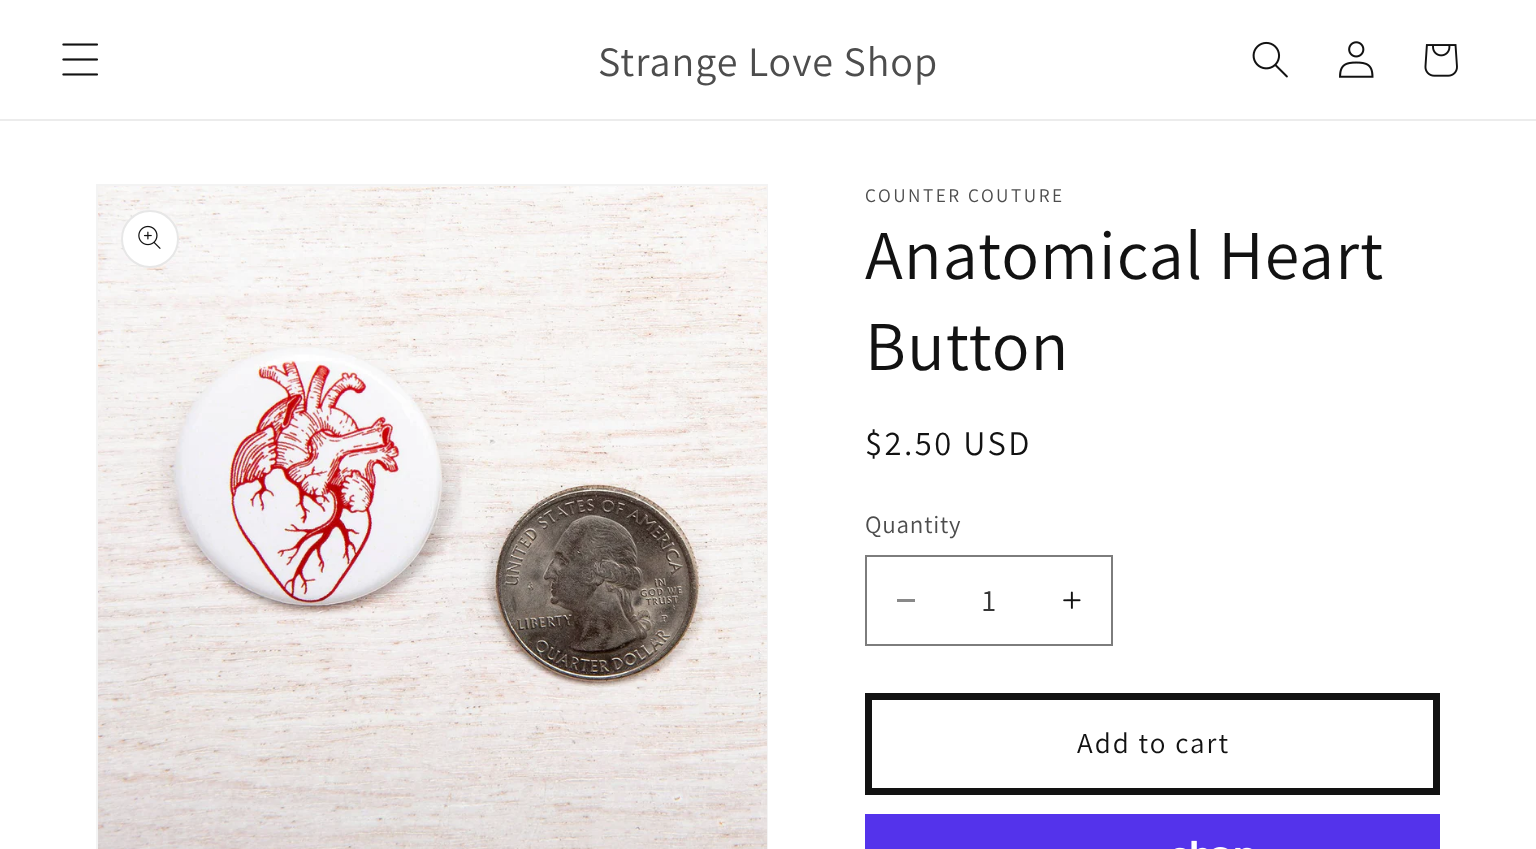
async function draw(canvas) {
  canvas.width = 1536;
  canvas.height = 849;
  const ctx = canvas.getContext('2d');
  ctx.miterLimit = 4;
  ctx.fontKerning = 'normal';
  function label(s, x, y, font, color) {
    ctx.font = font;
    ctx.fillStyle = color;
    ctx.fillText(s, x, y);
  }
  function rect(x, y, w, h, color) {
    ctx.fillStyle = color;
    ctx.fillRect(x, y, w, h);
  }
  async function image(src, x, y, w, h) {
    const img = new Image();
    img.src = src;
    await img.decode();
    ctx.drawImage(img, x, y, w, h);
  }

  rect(0, 0, 1536, 849, '#fff');
  rect(0, 119, 1536, 2, '#ececec');
  await image('assets/img1.png', 62, 43, 36, 33);
  ctx.letterSpacing = '1px';
  label('Strange Love Shop', 598, 76, '42px Assistant', '#4d4d4d');
  await image('assets/img2.png', 1252, 41, 36, 37);
  await image('assets/img3.png', 1339, 41, 35, 37);
  await image('assets/img4.png', 1424, 44, 34, 33);
  ctx.strokeStyle = '#f3f3f3';
  ctx.lineWidth = 2;
  ctx.strokeRect(97, 185, 670, 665);
  await image('assets/img5.png', 98, 186, 669, 663);
  ctx.fillStyle = '#fff';
  ctx.beginPath();
  ctx.arc(150, 239, 29, 0, 2 * Math.PI);
  ctx.fill();
  ctx.beginPath();
  ctx.arc(150, 239, 28, 0, 2 * Math.PI);
  ctx.strokeStyle = '#1212121a';
  ctx.stroke();
  await image('assets/img6.png', 138, 225, 23, 24);
  ctx.letterSpacing = '2.5px';
  label('COUNTER COUTURE', 865, 202, '19.25px Assistant', '#4d4d4d');
  ctx.letterSpacing = '1px';
  label('Anatomical Heart', 865, 279, '70px Assistant', '#121212');
  label('Button', 865, 370, '70px Assistant', '#121212');
  ctx.letterSpacing = '2.5px';
  label('$2.50 USD', 865, 455, '34.5px Assistant', '#121212');
  ctx.letterSpacing = '0.75px';
  label('Quantity', 865, 533, '25px Assistant', '#4d4d4d');
  rect(897, 599, 18, 3, '#898989');
  await image('assets/img7.png', 1063, 591, 18, 18);
  ctx.strokeStyle = '#7d7d7d';
  ctx.strokeRect(866, 556, 246, 89);
  ctx.letterSpacing = '0px';
  label('1', 982, 611, '31px Assistant', '#363636');
  ctx.strokeStyle = '#121212';
  ctx.lineWidth = 7;
  ctx.strokeRect(868.5, 696.5, 568, 95);
  ctx.letterSpacing = '2px';
  label('Add to cart', 1077, 753, '29px Assistant', '#121212');
  rect(865, 814, 575, 35, '#5433eb');
  await image('assets/img8.png', 1175, 840, 77, 9);
}

draw(document.querySelector('canvas'));
